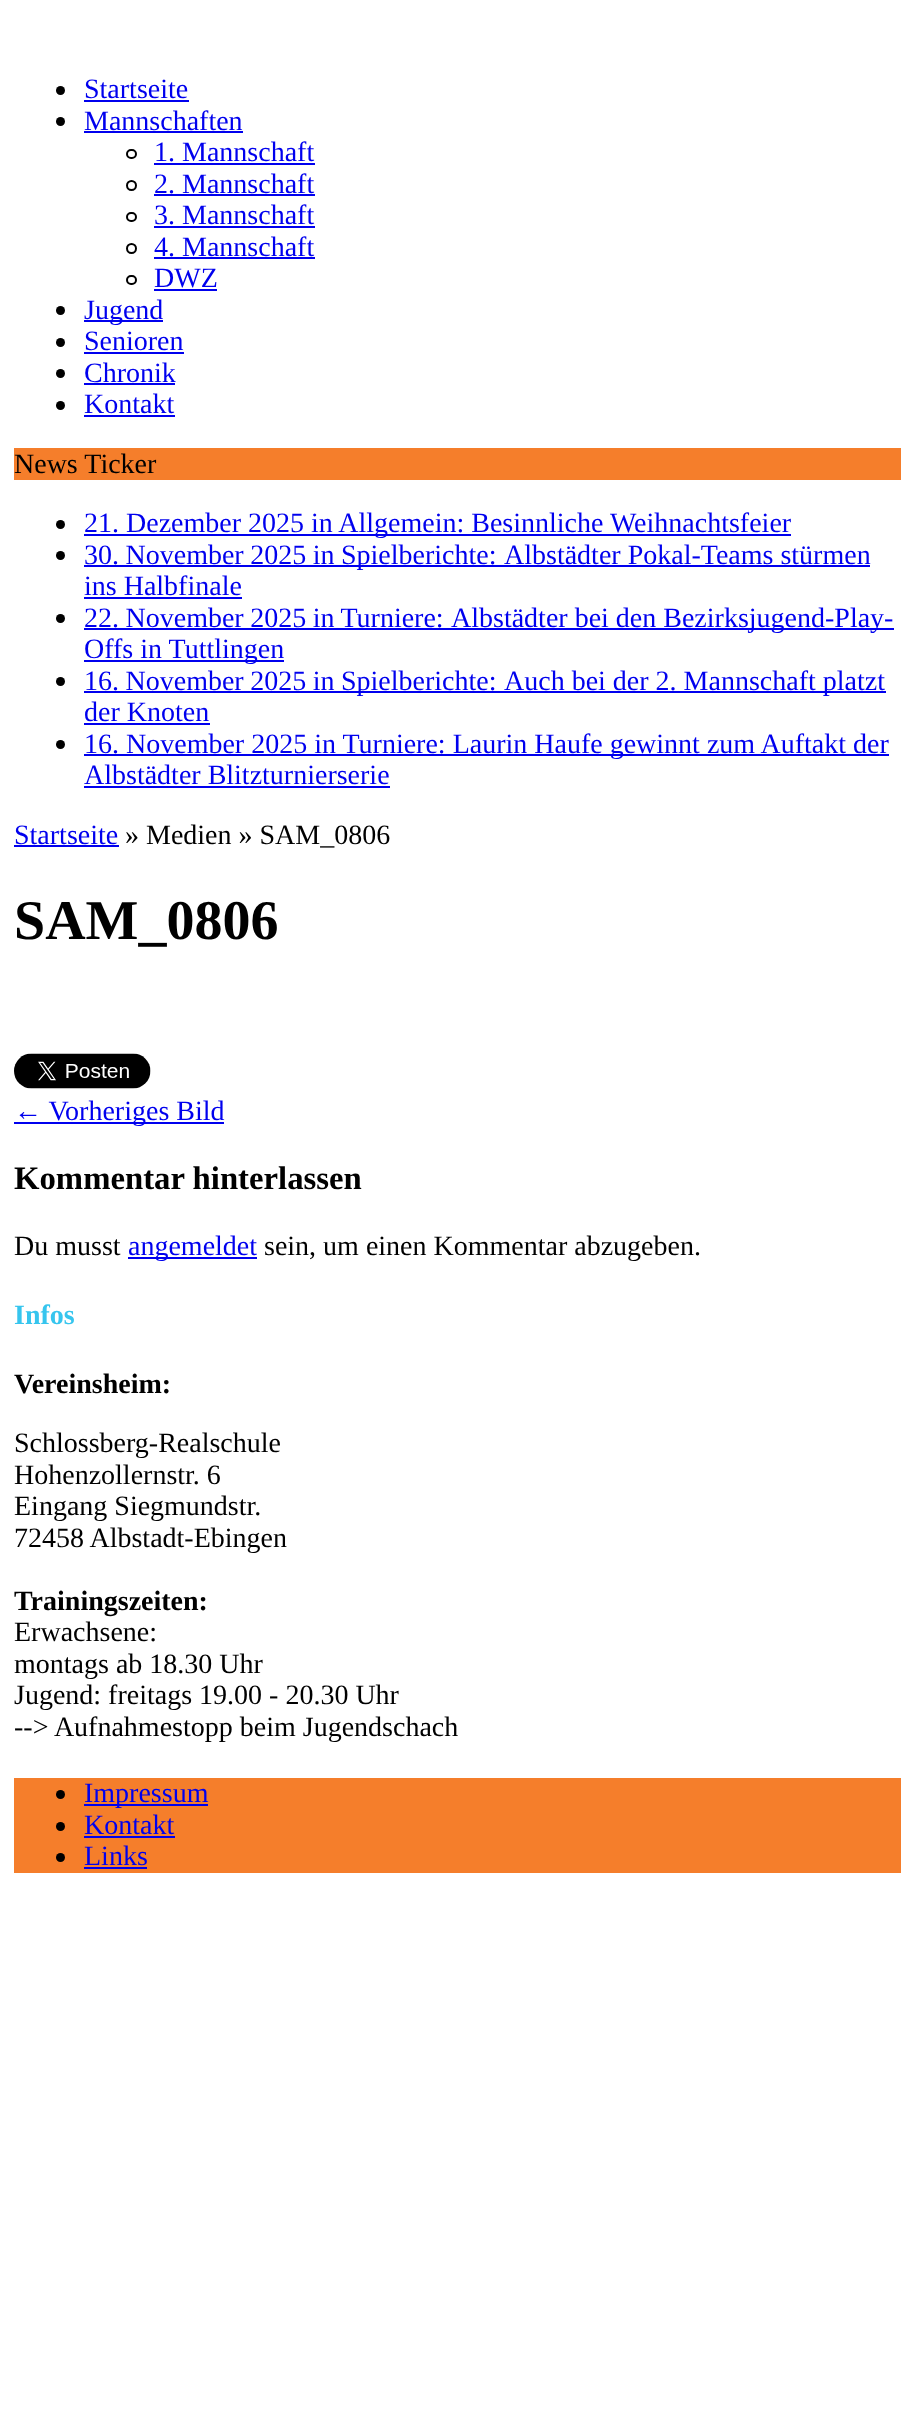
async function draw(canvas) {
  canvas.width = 915;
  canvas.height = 2435;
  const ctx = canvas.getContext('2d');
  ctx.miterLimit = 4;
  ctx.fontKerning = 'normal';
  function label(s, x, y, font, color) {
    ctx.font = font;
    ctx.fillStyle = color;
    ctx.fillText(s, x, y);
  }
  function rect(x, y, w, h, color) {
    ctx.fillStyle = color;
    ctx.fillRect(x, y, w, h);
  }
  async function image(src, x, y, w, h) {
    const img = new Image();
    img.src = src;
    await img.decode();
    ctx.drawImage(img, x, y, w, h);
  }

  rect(0, 0, 915, 2435, '#fff');
  ctx.fillStyle = '#000';
  ctx.beginPath();
  ctx.arc(60.5, 90.5, 4.5, 0, 2 * Math.PI);
  ctx.fill();
  label('Startseite', 84, 98, '28px Liberation Serif', '#00e');
  rect(84, 100, 105, 2, '#00e');
  ctx.fillStyle = '#000';
  ctx.beginPath();
  ctx.arc(60.5, 121.5, 4.5, 0, 2 * Math.PI);
  ctx.fill();
  label('Mannschaften', 84, 130, '28px Liberation Serif', '#00e');
  rect(84, 131, 159, 2, '#00e');
  ctx.beginPath();
  ctx.roundRect(127, 150, 9, 8, 4);
  ctx.strokeStyle = '#000';
  ctx.lineWidth = 2;
  ctx.stroke();
  label('1. Mannschaft', 154, 161, '28px Liberation Serif', '#00e');
  rect(154, 163, 161, 2, '#00e');
  ctx.beginPath();
  ctx.arc(131.5, 185.5, 4.5, 0, 2 * Math.PI);
  ctx.stroke();
  label('2. Mannschaft', 154, 193, '28px Liberation Serif', '#00e');
  rect(154, 194, 161, 2, '#00e');
  ctx.beginPath();
  ctx.roundRect(127, 213, 9, 8, 4);
  ctx.stroke();
  label('3. Mannschaft', 154, 224, '28px Liberation Serif', '#00e');
  rect(154, 226, 161, 2, '#00e');
  ctx.beginPath();
  ctx.arc(131.5, 248.5, 4.5, 0, 2 * Math.PI);
  ctx.stroke();
  label('4. Mannschaft', 154, 256, '28px Liberation Serif', '#00e');
  rect(154, 257, 161, 2, '#00e');
  ctx.beginPath();
  ctx.roundRect(127, 276, 9, 8, 4);
  ctx.stroke();
  label('DWZ', 154, 287, '28px Liberation Serif', '#00e');
  rect(154, 289, 63, 2, '#00e');
  ctx.fillStyle = '#000';
  ctx.beginPath();
  ctx.arc(60.5, 310.5, 4.5, 0, 2 * Math.PI);
  ctx.fill();
  rect(84, 320, 79, 2, '#00e');
  label('Jugend', 84, 319, '28px Liberation Serif', '#00e');
  ctx.fillStyle = '#000';
  ctx.beginPath();
  ctx.arc(60.5, 342.5, 4.5, 0, 2 * Math.PI);
  ctx.fill();
  label('Senioren', 84, 350, '28px Liberation Serif', '#00e');
  rect(84, 352, 100, 2, '#00e');
  ctx.fillStyle = '#000';
  ctx.beginPath();
  ctx.arc(60.5, 373.5, 4.5, 0, 2 * Math.PI);
  ctx.fill();
  label('Chronik', 84, 382, '28px Liberation Serif', '#00e');
  rect(84, 383, 91, 2, '#00e');
  ctx.fillStyle = '#000';
  ctx.beginPath();
  ctx.arc(60.5, 405.5, 4.5, 0, 2 * Math.PI);
  ctx.fill();
  label('Kontakt', 84, 413, '28px Liberation Serif', '#00e');
  rect(84, 415, 91, 2, '#00e');
  rect(14, 448, 887, 32, '#f57e2b');
  label('News Ticker', 14, 473, '28px Liberation Serif', '#000');
  ctx.beginPath();
  ctx.arc(60.5, 524.5, 4.5, 0, 2 * Math.PI);
  ctx.fill();
  rect(84, 534, 707, 2, '#00e');
  label('21. Dezember 2025 in Allgemein: Besinnliche Weihnachtsfeier', 84, 532, '28px Liberation Serif', '#00e');
  ctx.fillStyle = '#000';
  ctx.beginPath();
  ctx.arc(60.5, 555.5, 4.5, 0, 2 * Math.PI);
  ctx.fill();
  rect(84, 565, 786, 2, '#00e');
  ctx.wordSpacing = '-0.5px';
  label('30. November 2025 in Spielberichte:', 84, 564, '28px Liberation Serif', '#00e');
  ctx.wordSpacing = '0px';
  label('Albstädter Pokal-Teams stürmen', 504, 564, '28px Liberation Serif', '#00e');
  label('ins Halbfinale', 84, 595, '28px Liberation Serif', '#00e');
  rect(84, 597, 158, 2, '#00e');
  ctx.fillStyle = '#000';
  ctx.beginPath();
  ctx.arc(60.5, 618.5, 4.5, 0, 2 * Math.PI);
  ctx.fill();
  ctx.wordSpacing = '-0.5px';
  label('22. November 2025 in Turniere:', 84, 627, '28px Liberation Serif', '#00e');
  rect(84, 628, 810, 2, '#00e');
  ctx.wordSpacing = '0px';
  label('Albstädter bei den Bezirksjugend-Play-', 451, 627, '28px Liberation Serif', '#00e');
  rect(84, 660, 200, 2, '#00e');
  label('Offs in Tuttlingen', 84, 658, '28px Liberation Serif', '#00e');
  ctx.fillStyle = '#000';
  ctx.beginPath();
  ctx.arc(60.5, 681.5, 4.5, 0, 2 * Math.PI);
  ctx.fill();
  rect(84, 691, 802, 2, '#00e');
  ctx.wordSpacing = '-0.5px';
  label('16. November 2025 in Spielberichte:', 84, 690, '28px Liberation Serif', '#00e');
  ctx.wordSpacing = '0px';
  label('Auch bei der 2. Mannschaft platzt', 504, 690, '28px Liberation Serif', '#00e');
  label('der Knoten', 84, 721, '28px Liberation Serif', '#00e');
  rect(84, 723, 126, 2, '#00e');
  ctx.fillStyle = '#000';
  ctx.beginPath();
  ctx.arc(60.5, 744.5, 4.5, 0, 2 * Math.PI);
  ctx.fill();
  rect(84, 754, 805, 2, '#00e');
  label('16. November 2025 in Turniere: Laurin Haufe gewinnt zum Auftakt der', 84, 753, '28px Liberation Serif', '#00e');
  label('Albstädter Blitzturnierserie', 84, 784, '28px Liberation Serif', '#00e');
  rect(84, 786, 306, 2, '#00e');
  label('Startseite', 14, 844, '28px Liberation Serif', '#00e');
  rect(14, 845, 105, 2, '#00e');
  label('» Medien » SAM_0806', 125, 844, '28px Liberation Serif', '#000');
  label('SAM_0806', 14, 939, 'bold 56px Liberation Serif', '#000');
  await image('assets/img1.png', 14, 1053, 137, 36);
  rect(14, 1122, 210, 2, '#00e');
  label('← Vorheriges Bild', 14, 1120, '28px Liberation Serif', '#00e');
  label('Kommentar hinterlassen', 14, 1189, 'bold 32.75px Liberation Serif', '#000');
  label('Du musst', 14, 1255, '28px Liberation Serif', '#000');
  rect(128, 1257, 129, 2, '#00e');
  label('angemeldet', 128, 1255, '28px Liberation Serif', '#00e');
  label('sein, um einen Kommentar abzugeben.', 264, 1255, '28px Liberation Serif', '#000');
  label('Infos', 14, 1324, 'bold 28px Liberation Serif', '#36c5ee');
  label('Vereinsheim:', 14, 1393, 'bold 28px Liberation Serif', '#000');
  label('Schlossberg-Realschule', 14, 1452, '28px Liberation Serif', '#000');
  label('Hohenzollernstr. 6', 14, 1484, '28px Liberation Serif', '#000');
  label('Eingang Siegmundstr.', 14, 1515, '28px Liberation Serif', '#000');
  label('72458 Albstadt-Ebingen', 14, 1547, '28px Liberation Serif', '#000');
  label('Trainingszeiten:', 14, 1610, 'bold 28px Liberation Serif', '#000');
  label('Erwachsene:', 14, 1641, '28px Liberation Serif', '#000');
  label('montags ab 18.30 Uhr', 14, 1673, '28px Liberation Serif', '#000');
  label('Jugend: freitags 19.00 - 20.30 Uhr', 14, 1704, '28px Liberation Serif', '#000');
  label('--> Aufnahmestopp beim Jugendschach', 14, 1736, '28px Liberation Serif', '#000');
  rect(14, 1778, 887, 95, '#f57e2b');
  ctx.fillStyle = '#000';
  ctx.beginPath();
  ctx.arc(60.5, 1794.5, 4.5, 0, 2 * Math.PI);
  ctx.fill();
  rect(84, 1804, 124, 2, '#00e');
  label('Impressum', 84, 1802, '28px Liberation Serif', '#00e');
  ctx.fillStyle = '#000';
  ctx.beginPath();
  ctx.arc(60.5, 1826.5, 4.5, 0, 2 * Math.PI);
  ctx.fill();
  label('Kontakt', 84, 1834, '28px Liberation Serif', '#00e');
  rect(84, 1836, 91, 2, '#00e');
  ctx.fillStyle = '#000';
  ctx.beginPath();
  ctx.arc(60.5, 1857.5, 4.5, 0, 2 * Math.PI);
  ctx.fill();
  label('Links', 84, 1865, '28px Liberation Serif', '#00e');
  rect(84, 1867, 63, 2, '#00e');
}

draw(document.querySelector('canvas'));
